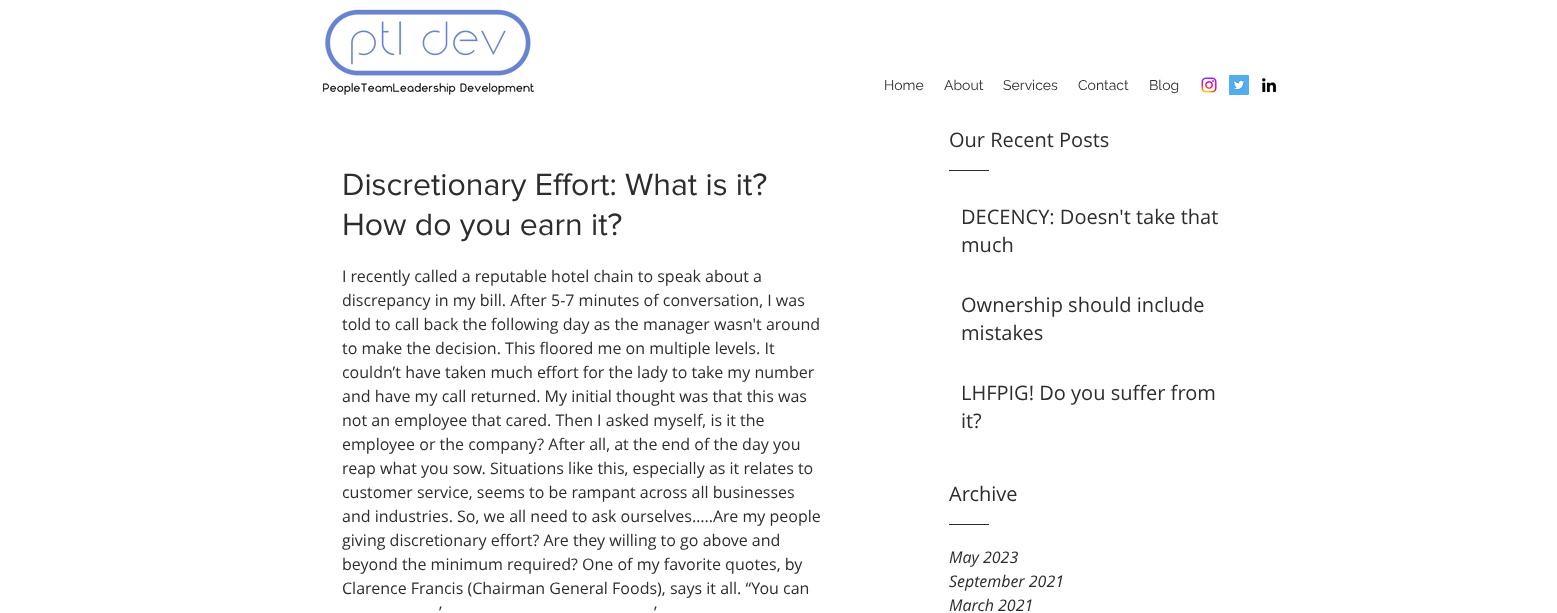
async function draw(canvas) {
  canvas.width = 1557;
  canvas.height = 613;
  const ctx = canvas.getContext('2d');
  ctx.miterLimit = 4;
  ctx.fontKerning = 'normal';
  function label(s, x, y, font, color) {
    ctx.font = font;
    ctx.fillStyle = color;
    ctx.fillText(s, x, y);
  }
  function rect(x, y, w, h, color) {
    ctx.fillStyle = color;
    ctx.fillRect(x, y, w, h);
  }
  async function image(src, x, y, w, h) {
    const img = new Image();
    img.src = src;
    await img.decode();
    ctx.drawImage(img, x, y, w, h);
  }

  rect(0, 0, 1557, 613, '#fff');
  await image('assets/img1.png', 322, 9, 212, 86);
  label('Home', 884, 90, '14px Raleway', '#2d2d2d');
  label('About', 944, 90, '14px Raleway', '#2d2d2d');
  label('Services', 1003, 90, '14px Raleway', '#2d2d2d');
  label('Contact', 1078, 90, '14px Raleway', '#2d2d2d');
  label('Blog', 1149, 90, '14px Raleway', '#2d2d2d');
  await image('assets/img2.png', 1201, 77, 16, 16);
  await image('assets/img3.png', 1229, 75, 20, 20);
  await image('assets/img4.png', 1262, 78, 15, 15);
  label('Discretionary Effort: What is it?', 342, 195, '32px "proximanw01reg"', '#2d2d2d');
  label('How do you earn it?', 342, 235, '32px "proximanw01reg"', '#2d2d2d');
  label('I recently called a reputable hotel chain to speak about a', 342, 282, '16px Open Sans', '#2d2d2d');
  label('discrepancy in my bill. After 5-7 minutes of conversation, I was', 342, 306, '16px Open Sans', '#2d2d2d');
  label('told to call back the following day as the manager wasn\'t around', 342, 330, '16px Open Sans', '#2d2d2d');
  label('to make the decision. This floored me on multiple levels. It', 342, 354, '16px Open Sans', '#2d2d2d');
  label('couldn’t have taken much effort for the lady to take my number', 342, 378, '16px Open Sans', '#2d2d2d');
  label('and have my call returned. My initial thought was that this was', 342, 402, '16px Open Sans', '#2d2d2d');
  label('not an employee that cared. Then I asked myself, is it the', 342, 426, '16px Open Sans', '#2d2d2d');
  label('employee or the company? After all, at the end of the day you', 342, 450, '16px Open Sans', '#2d2d2d');
  label('reap what you sow. Situations like this, especially as it relates to', 342, 474, '16px Open Sans', '#2d2d2d');
  label('customer service, seems to be rampant across all businesses', 342, 498, '16px Open Sans', '#2d2d2d');
  label('and industries. So, we all need to ask ourselves…..Are my people', 342, 522, '16px Open Sans', '#2d2d2d');
  label('giving discretionary effort? Are they willing to go above and', 342, 546, '16px Open Sans', '#2d2d2d');
  label('beyond the minimum required? One of my favorite quotes, by', 342, 570, '16px Open Sans', '#2d2d2d');
  label('Clarence Francis (Chairman General Foods), says it all. “You can', 342, 594, '16px Open Sans', '#2d2d2d');
  label('’', 439, 618, '16px Open Sans', '#2d2d2d');
  label('’', 654, 618, '16px Open Sans', '#2d2d2d');
  label('Our Recent Posts', 949, 147, '20px Open Sans', '#2d2d2d');
  rect(949, 170, 40, 1, '#2d2d2d');
  label('DECENCY: Doesn\'t take that', 961, 224, '20px Open Sans', '#2d2d2d');
  label('much', 961, 252, '20px Open Sans', '#2d2d2d');
  label('Ownership should include', 961, 312, '20px Open Sans', '#2d2d2d');
  label('mistakes', 961, 340, '20px Open Sans', '#2d2d2d');
  label('LHFPIG! Do you suffer from', 961, 400, '20px Open Sans', '#2d2d2d');
  label('it?', 961, 428, '20px Open Sans', '#2d2d2d');
  label('Archive', 949, 501, '20px Open Sans', '#2d2d2d');
  rect(949, 524, 40, 1, '#2d2d2d');
  label('May 2023', 949, 563, 'italic 16px Open Sans', '#2d2d2d');
  label('September 2021', 949, 587, 'italic 16px Open Sans', '#2d2d2d');
  label('March 2021', 949, 611, 'italic 16px Open Sans', '#2d2d2d');
}

draw(document.querySelector('canvas'));
